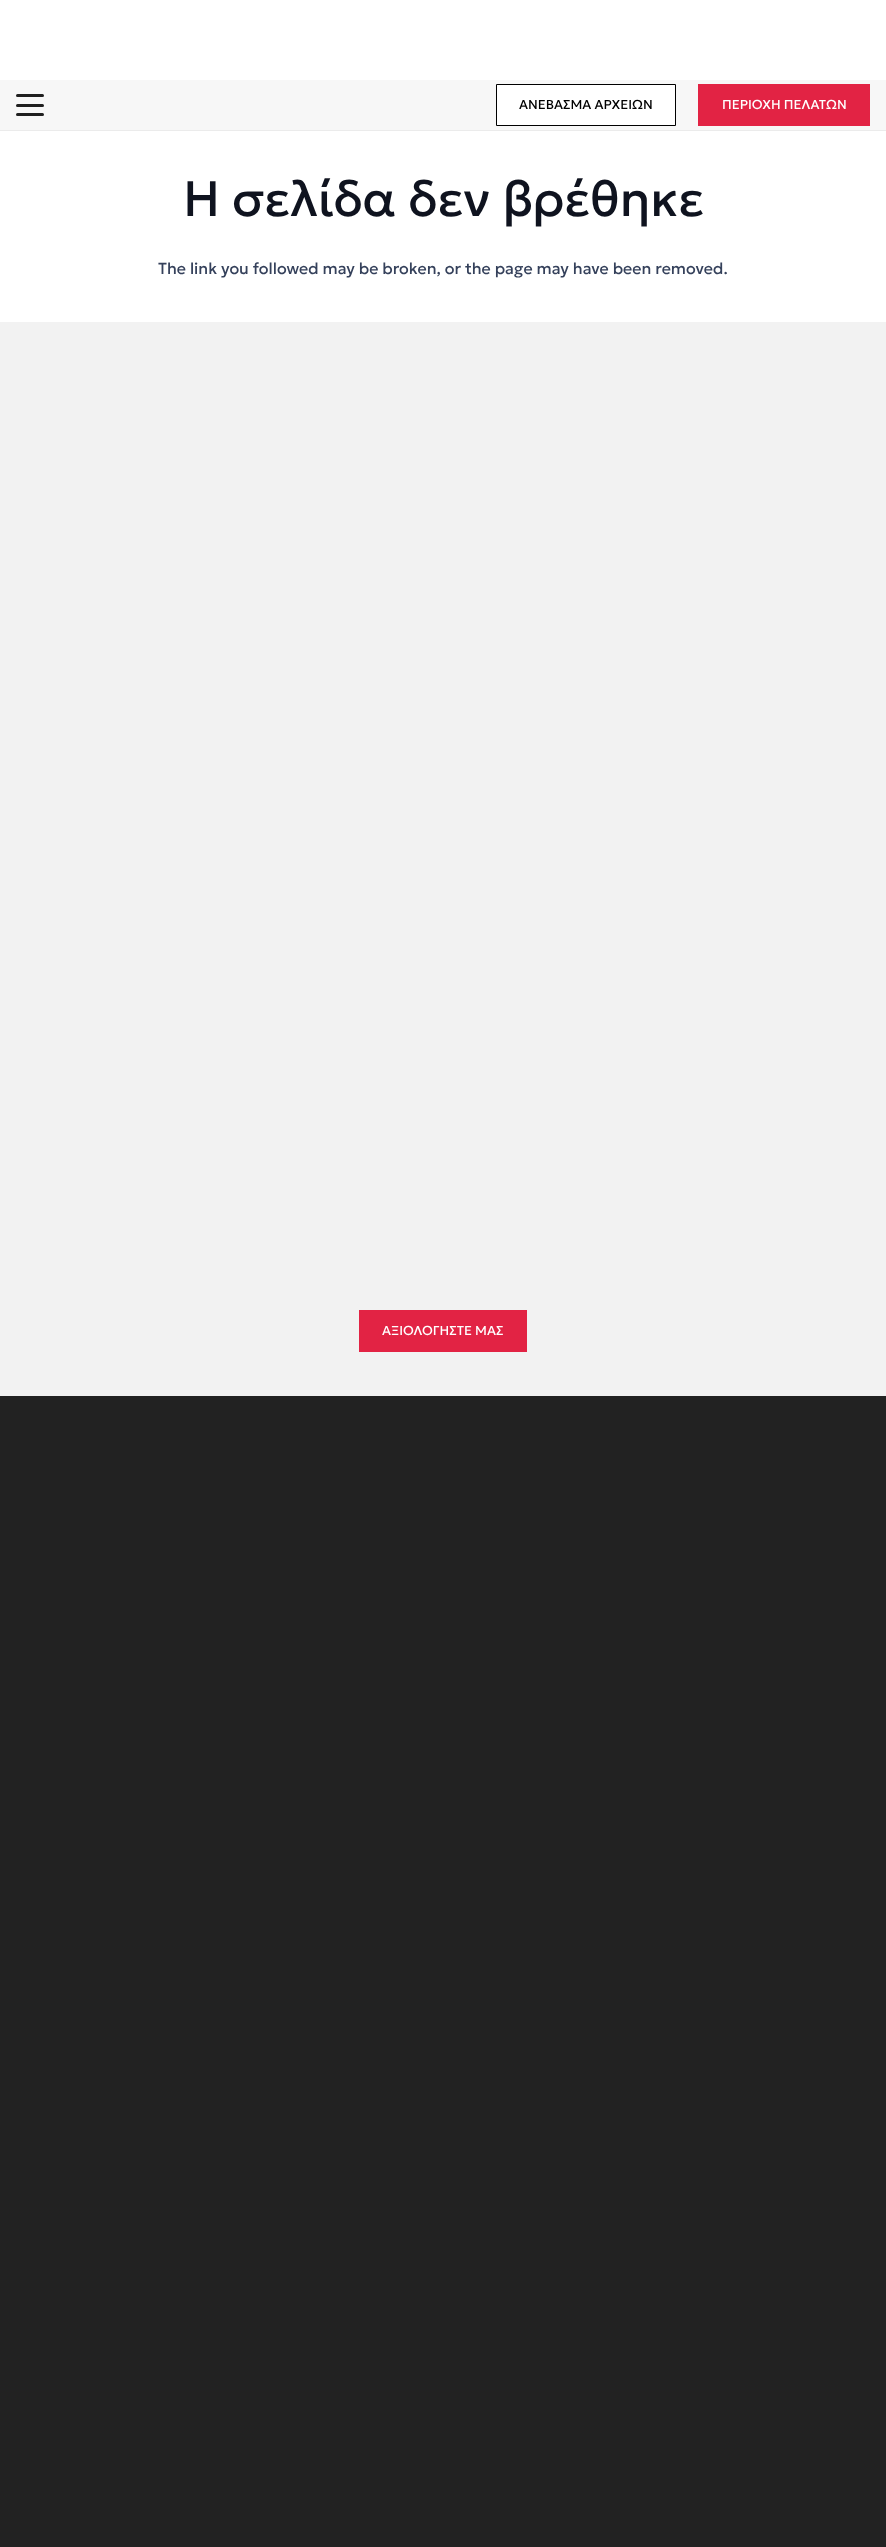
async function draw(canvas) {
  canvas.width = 886;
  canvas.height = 2547;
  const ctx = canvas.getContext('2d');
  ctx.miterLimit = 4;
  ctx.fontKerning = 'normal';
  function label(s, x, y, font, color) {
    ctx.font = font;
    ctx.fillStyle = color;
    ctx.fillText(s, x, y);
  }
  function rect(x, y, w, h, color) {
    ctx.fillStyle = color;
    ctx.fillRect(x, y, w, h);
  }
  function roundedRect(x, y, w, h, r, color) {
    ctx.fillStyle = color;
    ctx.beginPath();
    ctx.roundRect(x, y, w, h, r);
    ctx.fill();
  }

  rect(0, 0, 886, 2547, '#fff');
  rect(0, 130, 886, 1, '#ebebeb');
  rect(0, 80, 886, 50, '#f7f7f7');
  roundedRect(16, 104, 28, 3, 1.5, '#1f1f1f');
  roundedRect(16, 94, 28, 3, 1.5, '#1f1f1f');
  roundedRect(16, 113, 28, 3, 1.5, '#1f1f1f');
  ctx.fillStyle = '#fff';
  ctx.beginPath();
  ctx.rect(496.5, 84.5, 179, 41);
  ctx.fill();
  ctx.strokeStyle = '#000';
  ctx.stroke();
  label('ΑΝΕΒΑΣΜΑ ΑΡΧΕΙΩΝ', 519, 109, '13px Geologica', '#000');
  rect(698, 84, 172, 42, '#e22344');
  label('ΠΕΡΙΟΧΗ ΠΕΛΑΤΩΝ', 722, 109, '13px Geologica', '#fff');
  label('Η σελίδα δεν βρέθηκε', 183, 216, '49.75px Geologica', '#0f131f');
  label('The link you followed may be broken, or the page may have been removed.', 158, 274, '16px Geologica', '#35415b');
  rect(0, 322, 886, 1074, '#f2f2f2');
  rect(359, 1310, 168, 42, '#e22344');
  label('ΑΞΙΟΛΟΓΗΣΤΕ ΜΑΣ', 382, 1335, '13px Geologica', '#fff');
  rect(0, 1396, 886, 1151, '#222');
}

draw(document.querySelector('canvas'));
